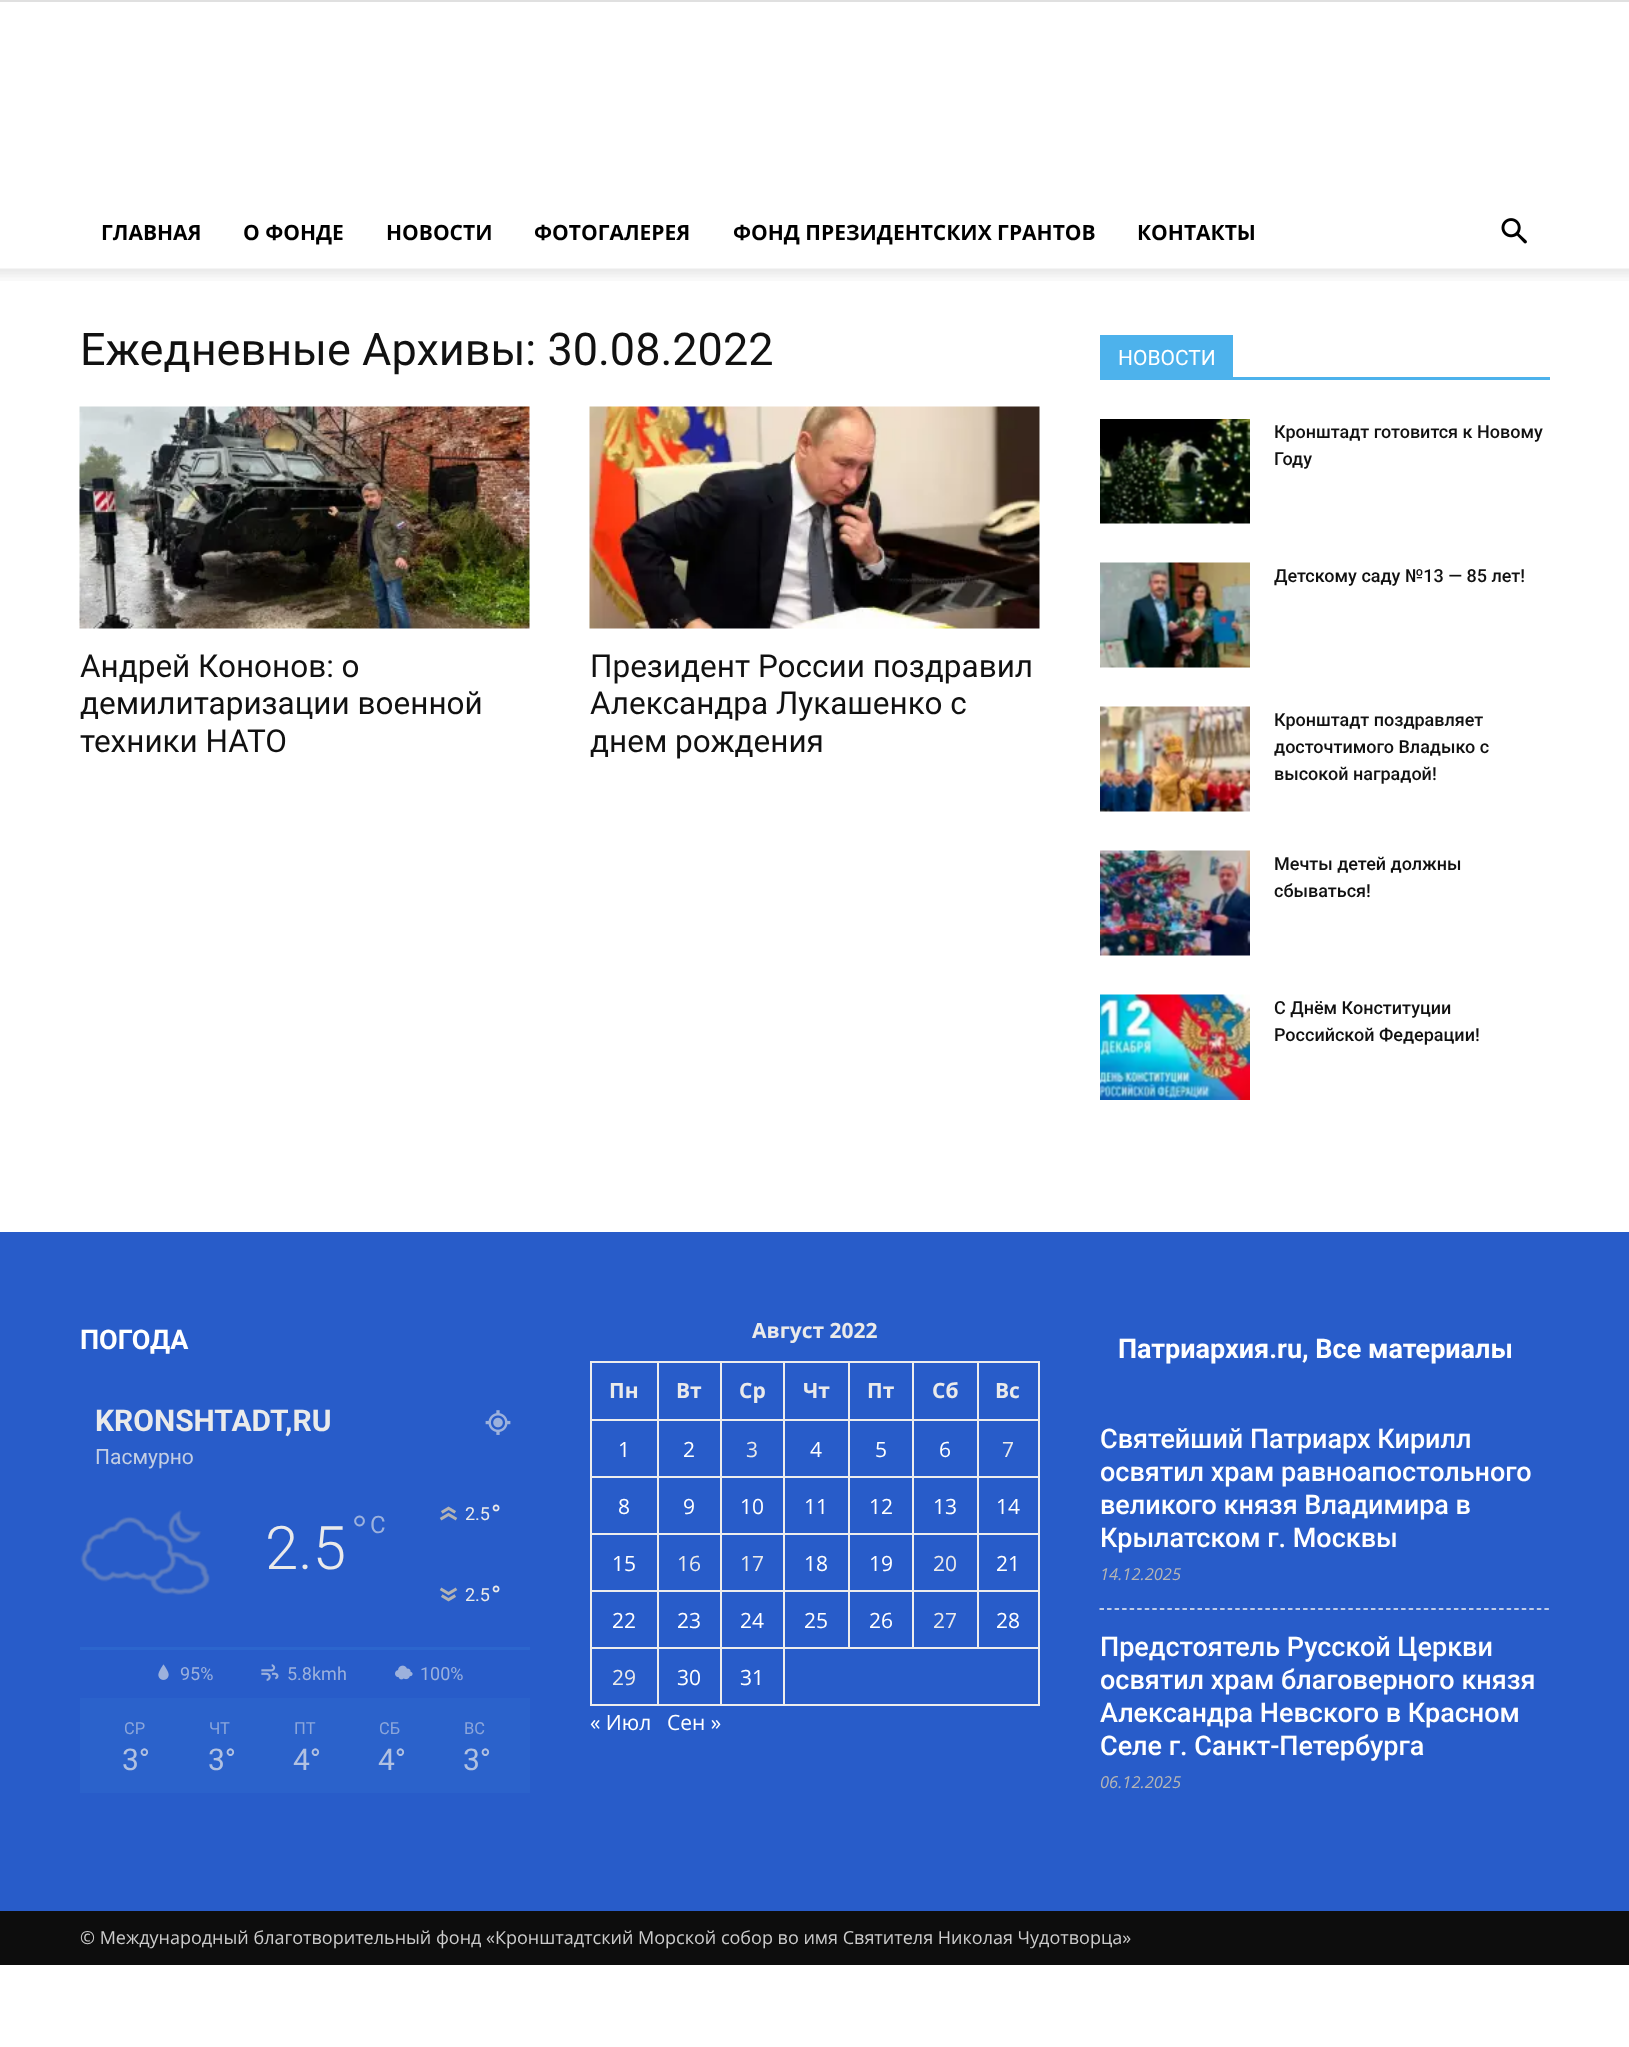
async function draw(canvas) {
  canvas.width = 1629;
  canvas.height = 2047;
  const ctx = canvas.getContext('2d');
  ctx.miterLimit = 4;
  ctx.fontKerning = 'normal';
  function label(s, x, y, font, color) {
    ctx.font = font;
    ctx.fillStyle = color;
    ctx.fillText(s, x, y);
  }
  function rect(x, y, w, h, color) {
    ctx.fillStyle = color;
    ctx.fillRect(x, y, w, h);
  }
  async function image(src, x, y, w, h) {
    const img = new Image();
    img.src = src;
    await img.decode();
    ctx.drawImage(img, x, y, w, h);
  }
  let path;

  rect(0, 0, 1629, 2047, '#fff');
  rect(0, 0, 1629, 2, '#e0e0e0');
  label('ГЛАВНАЯ', 101, 240, 'bold 21px Open Sans', '#000');
  label('О ФОНДЕ', 243, 240, 'bold 21px Open Sans', '#000');
  label('НОВОСТИ', 386, 240, 'bold 21px Open Sans', '#000');
  label('ФОТОГАЛЕРЕЯ', 534, 240, 'bold 21px Open Sans', '#000');
  label('ФОНД ПРЕЗИДЕНТСКИХ ГРАНТОВ', 733, 240, 'bold 21px Open Sans', '#000');
  label('КОНТАКТЫ', 1137, 240, 'bold 21px Open Sans', '#000');
  await image('assets/img1.png', 1501, 218, 26, 26);
  await image('assets/img2.png', 0, 268, 1629, 13);
  label('Ежедневные Архивы: 30.08.2022', 80, 365, '45px Roboto', '#111');
  await image('assets/img3.png', 79, 406, 451, 223);
  label('Андрей Кононов: о', 80, 677, '31.5px Roboto', '#111');
  label('демилитаризации военной', 80, 714, '31.5px Roboto', '#111');
  label('техники НАТО', 80, 752, '31.5px Roboto', '#111');
  await image('assets/img4.png', 589, 406, 451, 223);
  label('Президент России поздравил', 590, 677, '31.5px Roboto', '#111');
  label('Александра Лукашенко с', 590, 714, '31.5px Roboto', '#111');
  label('днем рождения', 590, 752, '31.5px Roboto', '#111');
  rect(1100, 377, 450, 3, '#4db2ec');
  rect(1100, 335, 133, 42, '#4db2ec');
  label('НОВОСТИ', 1118, 365, '21px Roboto', '#fff');
  await image('assets/img5.png', 1100, 419, 150, 105);
  label('Кронштадт готовится к Новому', 1274, 438, '500 18px Roboto', '#111');
  label('Году', 1274, 465, '500 18px Roboto', '#111');
  await image('assets/img6.png', 1100, 562, 150, 106);
  label('Детскому саду №13 — 85 лет!', 1274, 582, '500 18px Roboto', '#111');
  await image('assets/img7.png', 1100, 706, 150, 106);
  label('Кронштадт поздравляет', 1274, 726, '500 18px Roboto', '#111');
  label('досточтимого Владыко с', 1274, 753, '500 18px Roboto', '#111');
  label('высокой наградой!', 1274, 780, '500 18px Roboto', '#111');
  await image('assets/img8.png', 1100, 850, 150, 106);
  label('Мечты детей должны', 1274, 870, '500 18px Roboto', '#111');
  label('сбываться!', 1274, 897, '500 18px Roboto', '#111');
  await image('assets/img9.png', 1100, 994, 150, 106);
  label('С Днём Конституции', 1274, 1014, '500 18px Roboto', '#111');
  label('Российской Федерации!', 1274, 1041, '500 18px Roboto', '#111');
  rect(0, 1232, 1629, 679, '#285cc9');
  label('ПОГОДА', 80, 1349, 'bold 27px Roboto', '#fff');
  label('KRONSHTADT,RU', 95, 1431, 'bold 30px Roboto', '#eaeaea');
  await image('assets/img10.png', 485, 1410, 26, 25);
  label('Пасмурно', 95, 1464, '21px Roboto', '#c3cee3');
  await image('assets/img11.png', 80, 1510, 130, 85);
  label('2.5', 265, 1569, '300 60px Roboto', '#eaeaea');
  label('°', 351, 1548, '300 45px Roboto', '#9cb1dd');
  label('C', 370, 1533, '24px Roboto', '#9cb1dd');
  await image('assets/img12.png', 439, 1506, 19, 15);
  label('2.5', 465, 1520, '18px Roboto', '#eaeaea');
  label('°', 491, 1524, '27px Roboto', '#eaeaea');
  await image('assets/img13.png', 439, 1587, 19, 15);
  label('2.5', 465, 1601, '18px Roboto', '#eaeaea');
  label('°', 491, 1605, '27px Roboto', '#eaeaea');
  rect(80, 1647, 450, 3, '#2c66cd');
  await image('assets/img14.png', 158, 1664, 11, 16);
  label('95%', 180, 1680, '18px Roboto', '#9cb1dd');
  await image('assets/img15.png', 261, 1664, 18, 17);
  label('5.8kmh', 287, 1680, '18px Roboto', '#9cb1dd');
  await image('assets/img16.png', 395, 1665, 18, 15);
  label('100%', 420, 1680, '18px Roboto', '#9cb1dd');
  rect(80, 1698, 450, 95, '#2b62cb');
  label('СР', 124, 1734, '16.5px Roboto', '#8ba6db');
  label('3°', 122, 1770, '30px Roboto', '#b1c1e1');
  label('ЧТ', 209, 1734, '16.5px Roboto', '#8ba6db');
  label('3°', 208, 1770, '30px Roboto', '#b1c1e1');
  label('ПТ', 294, 1734, '16.5px Roboto', '#8ba6db');
  label('4°', 293, 1770, '30px Roboto', '#b1c1e1');
  label('СБ', 379, 1734, '16.5px Roboto', '#8ba6db');
  label('4°', 378, 1770, '30px Roboto', '#b1c1e1');
  label('ВС', 464, 1734, '16.5px Roboto', '#8ba6db');
  label('3°', 463, 1770, '30px Roboto', '#b1c1e1');
  label('Август 2022', 752, 1338, 'bold 21px Open Sans', '#eaeaea');
  rect(977, 1361, 63, 2, '#ededed');
  rect(977, 1419, 63, 2, '#ededed');
  rect(977, 1476, 63, 2, '#ededed');
  rect(977, 1533, 63, 2, '#ededed');
  rect(977, 1590, 63, 2, '#ededed');
  rect(783, 1647, 257, 2, '#ededed');
  rect(977, 1590, 2, 59, '#ededed');
  rect(912, 1590, 66, 2, '#ededed');
  rect(977, 1533, 2, 59, '#ededed');
  rect(912, 1533, 66, 2, '#ededed');
  rect(977, 1476, 2, 59, '#ededed');
  rect(912, 1476, 66, 2, '#ededed');
  rect(977, 1419, 2, 59, '#ededed');
  rect(912, 1419, 66, 2, '#ededed');
  rect(977, 1361, 2, 60, '#ededed');
  rect(912, 1361, 66, 2, '#ededed');
  rect(912, 1590, 2, 59, '#ededed');
  rect(848, 1590, 66, 2, '#ededed');
  rect(912, 1533, 2, 59, '#ededed');
  rect(848, 1533, 66, 2, '#ededed');
  rect(912, 1476, 2, 59, '#ededed');
  rect(848, 1476, 66, 2, '#ededed');
  rect(912, 1419, 2, 59, '#ededed');
  rect(848, 1419, 66, 2, '#ededed');
  rect(912, 1361, 2, 60, '#ededed');
  rect(848, 1361, 66, 2, '#ededed');
  rect(848, 1590, 2, 59, '#ededed');
  rect(783, 1590, 66, 2, '#ededed');
  rect(848, 1533, 2, 59, '#ededed');
  rect(783, 1533, 66, 2, '#ededed');
  rect(848, 1476, 2, 59, '#ededed');
  rect(783, 1476, 66, 2, '#ededed');
  rect(848, 1419, 2, 59, '#ededed');
  rect(783, 1419, 66, 2, '#ededed');
  rect(848, 1361, 2, 60, '#ededed');
  rect(783, 1361, 66, 2, '#ededed');
  rect(1038, 1647, 2, 59, '#ededed');
  rect(783, 1704, 257, 2, '#ededed');
  rect(783, 1647, 2, 59, '#ededed');
  rect(720, 1647, 65, 2, '#ededed');
  rect(783, 1590, 2, 59, '#ededed');
  rect(720, 1590, 65, 2, '#ededed');
  rect(783, 1533, 2, 59, '#ededed');
  rect(720, 1533, 65, 2, '#ededed');
  rect(783, 1476, 2, 59, '#ededed');
  rect(720, 1476, 65, 2, '#ededed');
  rect(783, 1419, 2, 59, '#ededed');
  rect(720, 1419, 65, 2, '#ededed');
  rect(783, 1361, 2, 60, '#ededed');
  rect(720, 1361, 65, 2, '#ededed');
  rect(720, 1704, 65, 2, '#ededed');
  rect(720, 1647, 2, 59, '#ededed');
  rect(657, 1647, 65, 2, '#ededed');
  rect(720, 1590, 2, 59, '#ededed');
  rect(657, 1590, 65, 2, '#ededed');
  rect(720, 1533, 2, 59, '#ededed');
  rect(657, 1533, 65, 2, '#ededed');
  rect(720, 1476, 2, 59, '#ededed');
  rect(657, 1476, 65, 2, '#ededed');
  rect(720, 1419, 2, 59, '#ededed');
  rect(657, 1419, 65, 2, '#ededed');
  rect(720, 1361, 2, 60, '#ededed');
  rect(657, 1361, 65, 2, '#ededed');
  rect(657, 1704, 65, 2, '#ededed');
  rect(657, 1647, 2, 59, '#ededed');
  rect(590, 1647, 69, 2, '#ededed');
  rect(657, 1590, 2, 59, '#ededed');
  rect(590, 1590, 69, 2, '#ededed');
  rect(657, 1533, 2, 59, '#ededed');
  rect(590, 1533, 69, 2, '#ededed');
  rect(657, 1476, 2, 59, '#ededed');
  rect(590, 1476, 69, 2, '#ededed');
  rect(657, 1419, 2, 59, '#ededed');
  rect(590, 1419, 69, 2, '#ededed');
  rect(657, 1361, 2, 60, '#ededed');
  rect(590, 1361, 69, 2, '#ededed');
  rect(590, 1704, 69, 2, '#ededed');
  rect(590, 1647, 2, 59, '#ededed');
  rect(590, 1590, 2, 59, '#ededed');
  rect(590, 1533, 2, 59, '#ededed');
  rect(590, 1476, 2, 59, '#ededed');
  rect(590, 1419, 2, 59, '#ededed');
  rect(590, 1361, 2, 60, '#ededed');
  label('Пн', 609, 1398, 'bold 21px Open Sans', '#eaeaea');
  label('Вт', 676, 1398, 'bold 21px Open Sans', '#eaeaea');
  label('Ср', 739, 1398, 'bold 21px Open Sans', '#eaeaea');
  label('Чт', 803, 1398, 'bold 21px Open Sans', '#eaeaea');
  label('Пт', 867, 1398, 'bold 21px Open Sans', '#eaeaea');
  label('Сб', 932, 1398, 'bold 21px Open Sans', '#eaeaea');
  rect(1038, 1590, 2, 59, '#ededed');
  rect(1038, 1533, 2, 59, '#ededed');
  rect(1038, 1476, 2, 59, '#ededed');
  rect(1038, 1419, 2, 59, '#ededed');
  rect(1038, 1361, 2, 60, '#ededed');
  label('Вс', 995, 1398, 'bold 21px Open Sans', '#eaeaea');
  label('1', 618, 1457, '21px Open Sans', '#fff');
  label('2', 683, 1457, '21px Open Sans', '#fff');
  label('3', 746, 1457, '21px Open Sans', '#eaeaea');
  label('4', 810, 1457, '21px Open Sans', '#fff');
  label('5', 875, 1457, '21px Open Sans', '#fff');
  label('6', 939, 1457, '21px Open Sans', '#fff');
  label('7', 1002, 1457, '21px Open Sans', '#eaeaea');
  label('8', 618, 1514, '21px Open Sans', '#fff');
  label('9', 683, 1514, '21px Open Sans', '#fff');
  label('10', 740, 1514, '21px Open Sans', '#fff');
  label('11', 804, 1514, '21px Open Sans', '#fff');
  label('12', 869, 1514, '21px Open Sans', '#fff');
  label('13', 933, 1514, '21px Open Sans', '#fff');
  label('14', 996, 1514, '21px Open Sans', '#fff');
  label('15', 612, 1571, '21px Open Sans', '#fff');
  label('16', 677, 1571, '21px Open Sans', '#eaeaea');
  label('17', 740, 1571, '21px Open Sans', '#eaeaea');
  label('18', 804, 1571, '21px Open Sans', '#fff');
  label('19', 869, 1571, '21px Open Sans', '#fff');
  label('20', 933, 1571, '21px Open Sans', '#eaeaea');
  label('21', 996, 1571, '21px Open Sans', '#fff');
  label('22', 612, 1628, '21px Open Sans', '#fff');
  label('23', 677, 1628, '21px Open Sans', '#fff');
  label('24', 740, 1628, '21px Open Sans', '#fff');
  label('25', 804, 1628, '21px Open Sans', '#fff');
  label('26', 869, 1628, '21px Open Sans', '#fff');
  label('27', 933, 1628, '21px Open Sans', '#eaeaea');
  label('28', 996, 1628, '21px Open Sans', '#fff');
  label('29', 612, 1685, '21px Open Sans', '#eaeaea');
  label('30', 677, 1685, '21px Open Sans', '#fff');
  label('31', 740, 1685, '21px Open Sans', '#fff');
  label('« Июл', 590, 1730, '21px Open Sans', '#fff');
  label('Сен »', 667, 1730, '21px Open Sans', '#fff');
  label('Патриархия.ru, Все материалы', 1118, 1358, 'bold 27px Roboto', '#fff');
  path = new Path2D('M1099.5 1609H1549.5');
  ctx.strokeStyle = '#f1f1f1';
  ctx.lineWidth = 1.5;
  ctx.setLineDash([4.5, 3.04]);
  ctx.stroke(path);
  label('Святейший Патриарх Кирилл', 1100, 1448, '500 27px Roboto', '#fff');
  label('освятил храм равноапостольного', 1100, 1481, '500 27px Roboto', '#fff');
  label('великого князя Владимира в', 1100, 1514, '500 27px Roboto', '#fff');
  label('Крылатском г. Москвы', 1100, 1547, '500 27px Roboto', '#fff');
  label('14.12.2025', 1100, 1580, 'italic 16.5px Open Sans', '#b5b5b5');
  label('Предстоятель Русской Церкви', 1100, 1656, '500 27px Roboto', '#fff');
  label('освятил храм благоверного князя', 1100, 1689, '500 27px Roboto', '#fff');
  label('Александра Невского в Красном', 1100, 1722, '500 27px Roboto', '#fff');
  label('Селе г. Санкт-Петербурга', 1100, 1755, '500 27px Roboto', '#fff');
  label('06.12.2025', 1100, 1788, 'italic 16.5px Open Sans', '#b5b5b5');
  rect(0, 1911, 1629, 54, '#0d0d0d');
  label('© Международный благотворительный фонд «Кронштадтский Морской собор во имя Святителя Николая Чудотворца»', 80, 1944, '18px Open Sans', '#ccc');
}

draw(document.querySelector('canvas'));
